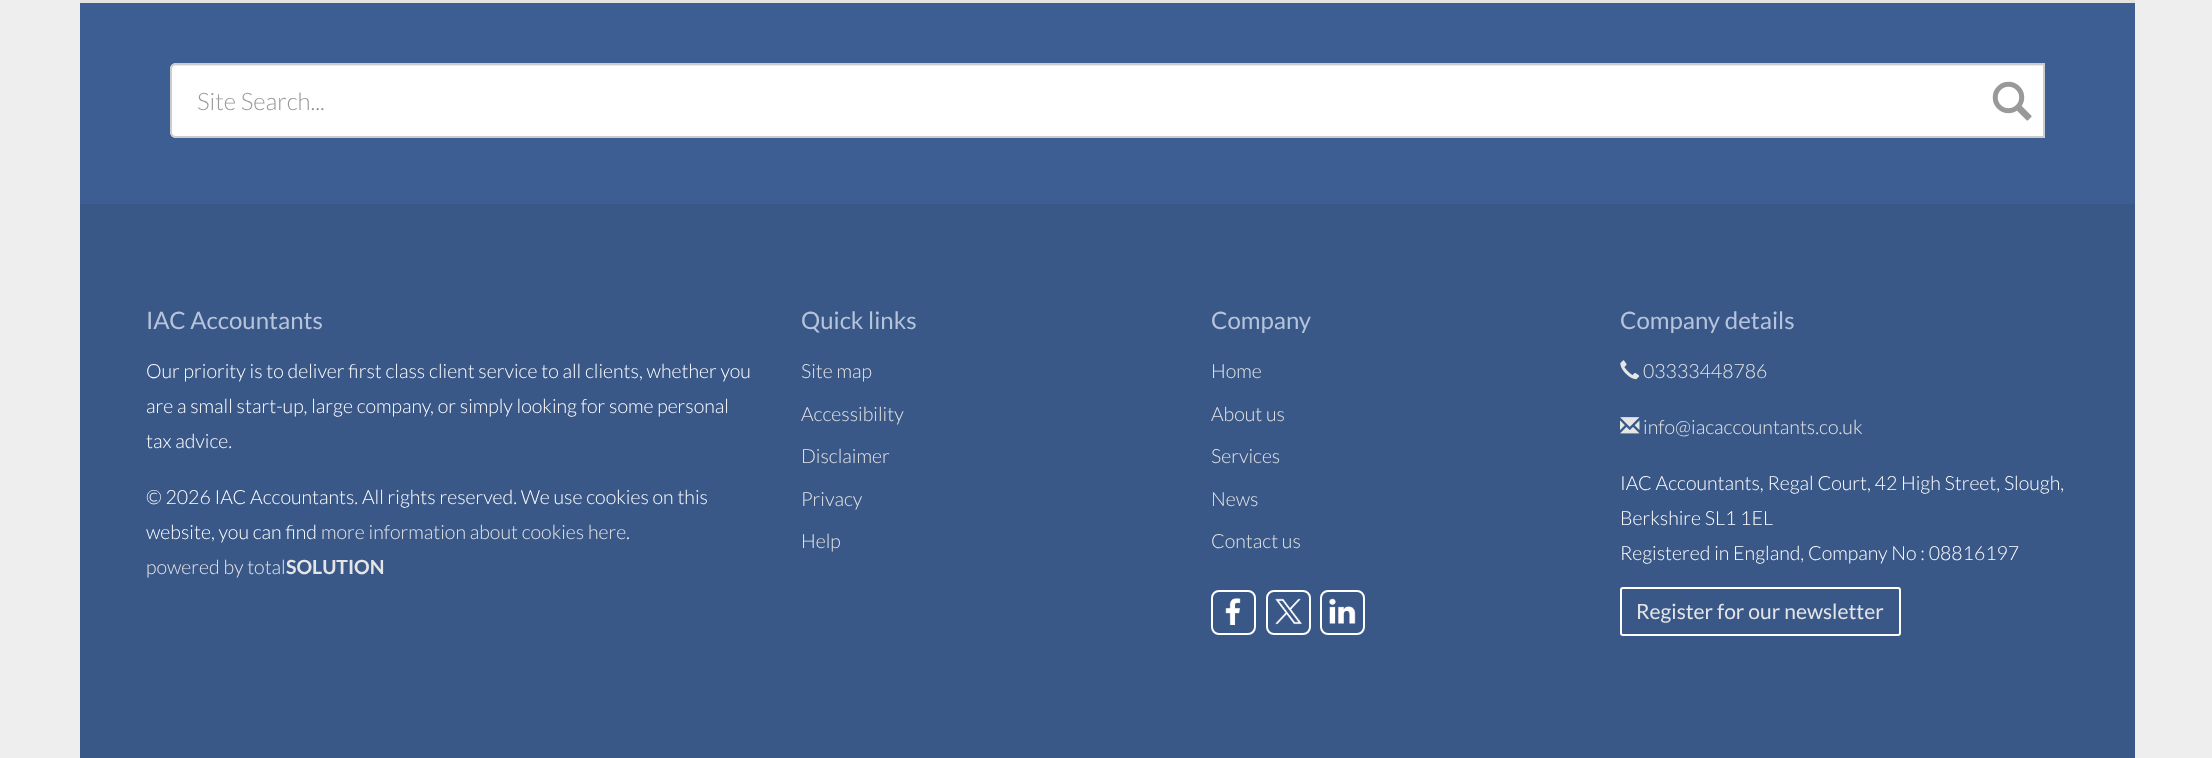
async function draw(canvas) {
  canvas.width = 2212;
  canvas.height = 758;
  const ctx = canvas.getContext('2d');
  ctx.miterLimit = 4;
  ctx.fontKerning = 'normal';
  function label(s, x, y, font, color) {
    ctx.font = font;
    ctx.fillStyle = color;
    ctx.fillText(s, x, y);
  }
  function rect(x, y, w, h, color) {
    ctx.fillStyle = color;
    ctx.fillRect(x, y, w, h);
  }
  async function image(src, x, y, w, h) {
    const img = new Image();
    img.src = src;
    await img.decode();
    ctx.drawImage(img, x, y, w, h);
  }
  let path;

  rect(0, 0, 2212, 758, '#eee');
  rect(80, 0, 2055, 3, '#e5e3df');
  rect(80, 3, 2055, 201, '#3d5e92');
  ctx.fillStyle = '#fff';
  ctx.beginPath();
  ctx.roundRect(170, 63, 1875, 75, [6, 0, 0, 6]);
  ctx.fill();
  ctx.fillStyle = '#ececec';
  path = new Path2D('M176 66H2043V65H176C173 65 171 67 171 70C171 68 173 66 176 66Z');
  ctx.fill(path);
  ctx.beginPath();
  ctx.roundRect(171, 64, 1873, 73, [5, 0, 0, 5]);
  ctx.strokeStyle = '#ccc';
  ctx.lineWidth = 2;
  ctx.stroke();
  label('Site Search...', 197, 110, '300 24px Lato', '#999');
  await image('assets/img1.png', 1992, 81, 40, 40);
  rect(80, 204, 2055, 554, '#395787');
  label('IAC Accountants', 146, 329, '24px Lato', '#b5c3db');
  label('Our priority is to deliver first class client service to all clients, whether you', 146, 378, '300 19.5px Lato', '#fff');
  label('are a small start-up, large company, or simply looking for some personal', 146, 413, '300 19.5px Lato', '#fff');
  label('tax advice.', 146, 448, '300 19.5px Lato', '#fff');
  label('© 2026 IAC Accountants. All rights reserved. We use cookies on this', 146, 504, '300 19.5px Lato', '#fff');
  label('website, you can find', 146, 539, '300 19.5px Lato', '#fff');
  label('more information about cookies here', 321, 539, '300 19.5px Lato', '#e5e5e5');
  label('.', 626, 539, '300 19.5px Lato', '#fff');
  label('powered by total', 146, 574, '300 19.5px Lato', '#e5e5e5');
  label('SOLUTION', 286, 574, 'bold 19.5px Lato', '#e5e5e5');
  label('Quick links', 801, 329, '24px Lato', '#b5c3db');
  label('Site map', 801, 378, '300 19.5px Lato', '#e5e5e5');
  label('Accessibility', 801, 421, '300 19.5px Lato', '#e5e5e5');
  label('Disclaimer', 801, 463, '300 19.5px Lato', '#e5e5e5');
  label('Privacy', 801, 506, '300 19.5px Lato', '#e5e5e5');
  label('Help', 801, 548, '300 19.5px Lato', '#e5e5e5');
  label('Company', 1211, 329, '24px Lato', '#b5c3db');
  label('Home', 1211, 378, '300 19.5px Lato', '#e5e5e5');
  label('About us', 1211, 421, '300 19.5px Lato', '#e5e5e5');
  label('Services', 1211, 463, '300 19.5px Lato', '#e5e5e5');
  label('News', 1211, 506, '300 19.5px Lato', '#e5e5e5');
  label('Contact us', 1211, 548, '300 19.5px Lato', '#e5e5e5');
  ctx.beginPath();
  ctx.roundRect(1212, 591, 43, 43, 7);
  ctx.strokeStyle = '#fff';
  ctx.stroke();
  ctx.beginPath();
  ctx.roundRect(1267, 591, 43, 43, 7);
  ctx.stroke();
  ctx.beginPath();
  ctx.roundRect(1321, 591, 43, 43, 7);
  ctx.stroke();
  await image('assets/img2.png', 1225, 598, 16, 27);
  await image('assets/img3.png', 1275, 598, 27, 27);
  await image('assets/img4.png', 1329, 598, 27, 26);
  label('Company details', 1620, 329, '24px Lato', '#b5c3db');
  await image('assets/img5.png', 1620, 360, 20, 20);
  label('03333448786', 1643, 378, '300 19.5px Lato', '#e5e5e5');
  await image('assets/img6.png', 1620, 417, 20, 17);
  label('info@iacaccountants.co.uk', 1643, 434, '300 19.5px Lato', '#e5e5e5');
  label('IAC Accountants, Regal Court, 42 High Street, Slough,', 1620, 490, '300 19.5px Lato', '#fff');
  label('Berkshire SL1 1EL', 1620, 525, '300 19.5px Lato', '#fff');
  label('Registered in England, Company No : 08816197', 1620, 560, '300 19.5px Lato', '#fff');
  ctx.beginPath();
  ctx.roundRect(1621, 588, 279, 47, 2);
  ctx.stroke();
  label('Register for our newsletter', 1636, 619, '21px Lato', '#e5e5e5');
}

draw(document.querySelector('canvas'));
